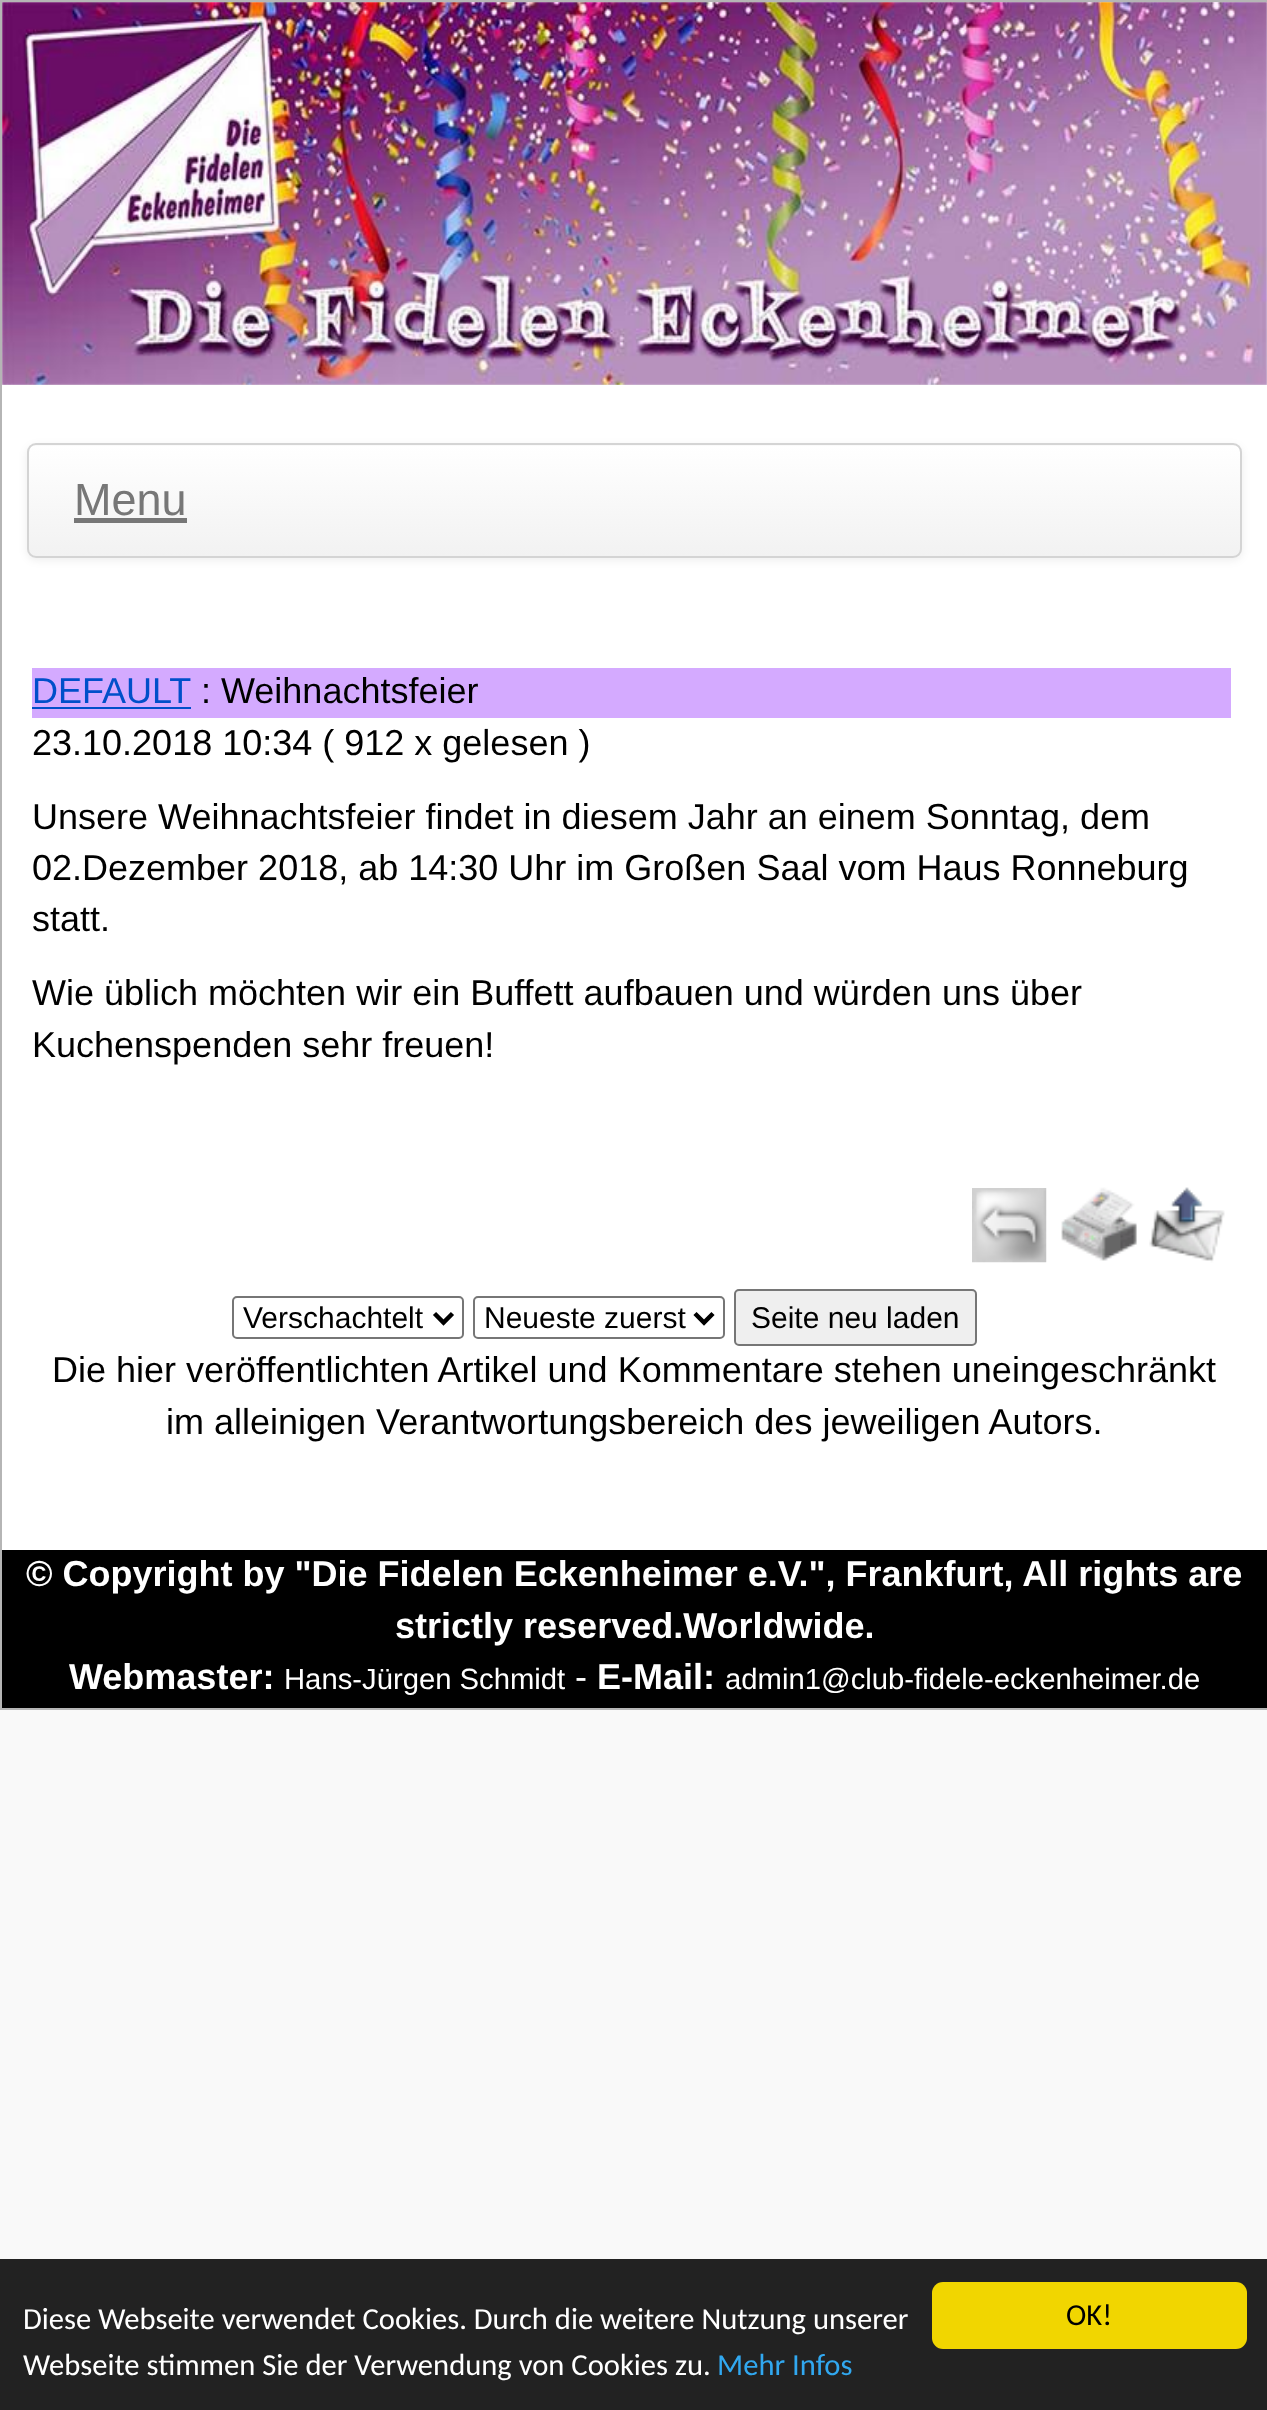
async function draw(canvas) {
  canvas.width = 1267;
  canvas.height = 2410;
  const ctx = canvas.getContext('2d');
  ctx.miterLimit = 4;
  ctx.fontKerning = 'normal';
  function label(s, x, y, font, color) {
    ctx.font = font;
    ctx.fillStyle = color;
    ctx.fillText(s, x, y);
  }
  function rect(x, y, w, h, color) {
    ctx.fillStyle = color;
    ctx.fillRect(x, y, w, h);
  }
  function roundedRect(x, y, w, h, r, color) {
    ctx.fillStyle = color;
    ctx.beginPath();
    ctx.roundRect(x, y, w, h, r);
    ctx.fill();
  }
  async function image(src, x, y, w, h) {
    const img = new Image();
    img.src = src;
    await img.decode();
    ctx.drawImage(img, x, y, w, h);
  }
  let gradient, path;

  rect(0, 0, 1267, 2410, '#f9f9f9');
  ctx.strokeStyle = '#b5b5b5';
  ctx.lineWidth = 2;
  ctx.strokeRect(1, 1, 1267, 1708);
  rect(2, 2, 1265, 383, '#e5e5e5');
  await image('assets/img1.png', 2, 2, 1265, 383);
  rect(2, 385, 1265, 1165, '#fff');
  ctx.fillStyle = '#00000012';
  ctx.filter = 'blur(4.5px)';
  ctx.beginPath();
  ctx.roundRect(27, 446, 1215, 114, 9);
  ctx.fill();
  ctx.filter = 'none';
  roundedRect(27, 443, 1215, 115, 9, '#fafafa');
  ctx.save();
  ctx.beginPath();
  ctx.roundRect(27, 443, 1215, 115, 9);
  ctx.clip();
  gradient = ctx.createLinearGradient(635, 445, 635, 556);
  gradient.addColorStop(0, '#fff');
  gradient.addColorStop(1, '#f2f2f2');
  ctx.fillStyle = gradient;
  ctx.fillRect(27, 446, 1215, 110);
  ctx.restore();
  ctx.beginPath();
  ctx.roundRect(28, 444, 1213, 113, 8);
  ctx.strokeStyle = '#d4d4d4';
  ctx.stroke();
  label('Menu', 74, 515, '45px Liberation Sans', '#777');
  rect(74, 518, 113, 5, '#777');
  rect(32, 668, 1199, 50, '#d4aaff');
  label('DEFAULT', 32, 703, '36px Liberation Sans', '#004fca');
  rect(32, 707, 159, 2, '#004fca');
  label(': Weihnachtsfeier', 201, 703, '36px Liberation Sans', '#000');
  label('23.10.2018 10:34 ( 912 x gelesen )', 32, 755, '36px Liberation Sans', '#000');
  label('Unsere Weihnachtsfeier findet in diesem Jahr an einem Sonntag, dem', 32, 829, '36px Liberation Sans', '#000');
  label('02.Dezember 2018, ab 14:30 Uhr im Großen Saal vom Haus Ronneburg', 32, 880, '36px Liberation Sans', '#000');
  label('statt.', 32, 931, '36px Liberation Sans', '#000');
  label('Wie üblich möchten wir ein Buffett aufbauen und würden uns über', 32, 1005, '36px Liberation Sans', '#000');
  label('Kuchenspenden sehr freuen!', 32, 1057, '36px Liberation Sans', '#000');
  await image('assets/img2.png', 972, 1188, 75, 75);
  await image('assets/img3.png', 1061, 1187, 76, 74);
  await image('assets/img4.png', 1149, 1187, 76, 76);
  ctx.beginPath();
  ctx.roundRect(233, 1297, 230, 41, 4);
  ctx.strokeStyle = '#767676';
  ctx.stroke();
  path = new Path2D('M434.5 1313.5L443.5 1322.5L452.5 1313.5');
  ctx.strokeStyle = '#000';
  ctx.lineWidth = 4.5;
  ctx.stroke(path);
  label('Verschachtelt', 243, 1328, '30px Liberation Sans', '#000');
  ctx.beginPath();
  ctx.roundRect(474, 1297, 250, 41, 4);
  ctx.strokeStyle = '#767676';
  ctx.lineWidth = 2;
  ctx.stroke();
  path = new Path2D('M695 1313.5L704 1322.5L713 1313.5');
  ctx.strokeStyle = '#000';
  ctx.lineWidth = 4.5;
  ctx.stroke(path);
  label('Neueste zuerst', 484, 1328, '30px Liberation Sans', '#000');
  ctx.fillStyle = '#efefef';
  ctx.beginPath();
  ctx.roundRect(735, 1290, 241, 55, 4);
  ctx.fill();
  ctx.strokeStyle = '#767676';
  ctx.lineWidth = 2;
  ctx.stroke();
  label('Seite neu laden', 751, 1328, '30px Liberation Sans', '#000');
  label('Die hier veröffentlichten Artikel und Kommentare stehen uneingeschränkt', 52, 1382, '36px Liberation Sans', '#000');
  label('im alleinigen Verantwortungsbereich des jeweiligen Autors.', 166, 1434, '36px Liberation Sans', '#000');
  rect(2, 1550, 1265, 158, '#000');
  label('© Copyright by "Die Fidelen Eckenheimer e.V.", Frankfurt, All rights are', 26, 1586, 'bold 36px Liberation Sans', '#fff');
  label('strictly reserved.Worldwide.', 395, 1638, 'bold 36px Liberation Sans', '#fff');
  label('Webmaster:', 69, 1689, 'bold 36px Liberation Sans', '#fff');
  label('Hans-Jürgen Schmidt', 284, 1689, '29.25px Liberation Sans', '#fff');
  label('-', 575, 1689, '36px Liberation Sans', '#fff');
  label('E-Mail:', 597, 1689, 'bold 36px Liberation Sans', '#fff');
  label('admin1@club-fidele-eckenheimer.de', 725, 1689, '29.25px Liberation Sans', '#fff');
  rect(0, 2259, 1267, 151, '#222');
  label('Diese Webseite verwendet Cookies. Durch die weitere Nutzung unserer', 23, 2329, '30.6px Carlito', '#fff');
  label('Webseite stimmen Sie der Verwendung von Cookies zu.', 23, 2375, '30.6px Carlito', '#fff');
  label('Mehr Infos', 717, 2375, '30.6px Carlito', '#31a8f0');
  roundedRect(932, 2282, 315, 67, 11, '#f1d600');
  label('OK!', 1066, 2325, '30.6px Carlito', '#000');
}

draw(document.querySelector('canvas'));
